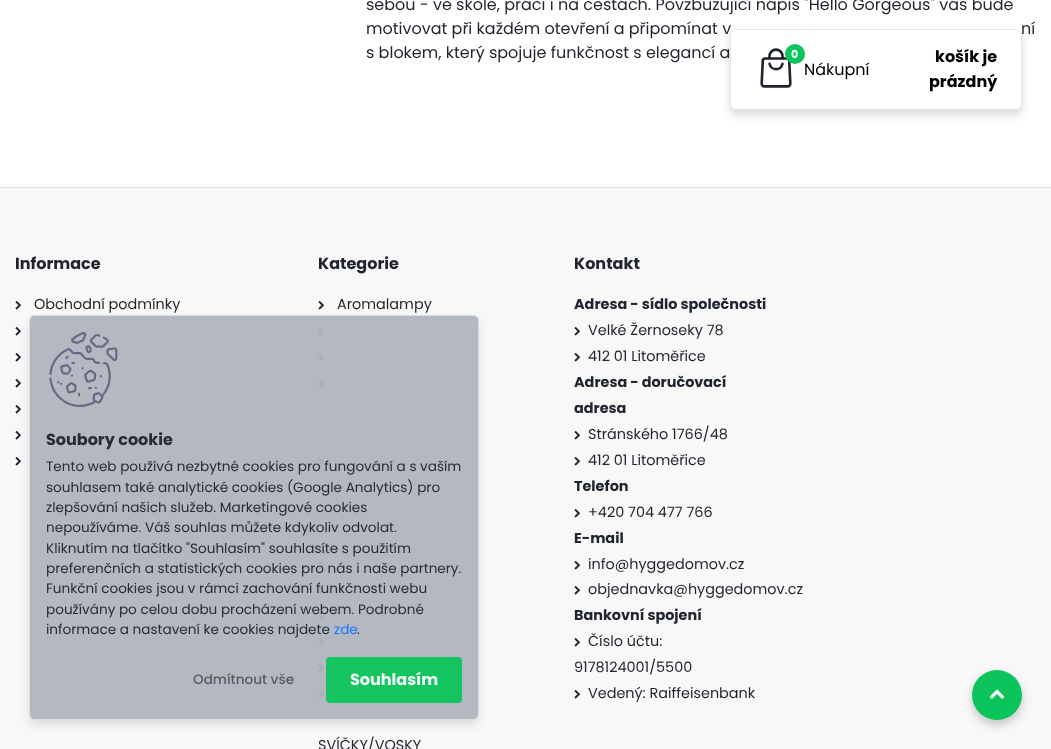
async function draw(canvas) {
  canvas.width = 1051;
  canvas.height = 749;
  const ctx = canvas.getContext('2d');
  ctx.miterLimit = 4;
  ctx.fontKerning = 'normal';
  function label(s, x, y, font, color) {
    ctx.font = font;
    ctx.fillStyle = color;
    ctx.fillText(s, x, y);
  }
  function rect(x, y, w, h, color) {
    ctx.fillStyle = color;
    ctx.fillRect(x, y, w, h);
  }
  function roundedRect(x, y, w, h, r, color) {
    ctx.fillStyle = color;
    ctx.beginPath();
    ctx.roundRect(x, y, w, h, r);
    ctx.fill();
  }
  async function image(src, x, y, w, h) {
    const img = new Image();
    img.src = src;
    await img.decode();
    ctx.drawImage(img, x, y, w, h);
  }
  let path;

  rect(0, 0, 1051, 749, '#fff');
  label('sebou - ve škole, práci i na cestách. Povzbuzující nápis "Hello Gorgeous" vás bude', 366, 10, '16px Poppins', '#1f242d');
  label('motivovat při každém otevření a připomínat v', 366, 34, '16px Poppins', '#1f242d');
  label('ní', 1021, 34, '16px Poppins', '#1f242d');
  label('s blokem, který spojuje funkčnost s elegancí a', 366, 58, '16px Poppins', '#1f242d');
  ctx.fillStyle = '#00000026';
  ctx.filter = 'blur(5px)';
  ctx.beginPath();
  ctx.roundRect(730, 34, 292, 81, 6);
  ctx.fill();
  ctx.filter = 'none';
  roundedRect(730, 29, 292, 81, 6, '#fff');
  ctx.beginPath();
  ctx.roundRect(730.5, 29.5, 291, 80, 5.5);
  ctx.strokeStyle = '#0000001a';
  ctx.stroke();
  await image('assets/img1.png', 760, 48, 32, 40);
  ctx.fillStyle = '#0bc45c';
  ctx.beginPath();
  ctx.arc(795, 54, 10, 0, 2 * Math.PI);
  ctx.fill();
  label('0', 791, 58, 'bold 11px Poppins', '#fff');
  label('Nákupní', 804, 75, '16px Poppins', '#000');
  label('košík je', 935, 62, 'bold 16px Poppins', '#000');
  label('prázdný', 929, 87, 'bold 16px Poppins', '#000');
  rect(0, 188, 1051, 561, '#f8f8f8');
  rect(0, 187, 1051, 1, '#dfdfdf');
  label('Informace', 15, 269, 'bold 16px Poppins', '#1f242d');
  await image('assets/img2.png', 15, 301, 6, 9);
  label('Obchodní podmínky', 34, 309, '14.4px Poppins', '#1f242d');
  await image('assets/img2.png', 15, 327, 6, 9);
  await image('assets/img2.png', 15, 353, 6, 9);
  await image('assets/img2.png', 15, 379, 6, 9);
  await image('assets/img2.png', 15, 405, 6, 9);
  await image('assets/img2.png', 15, 431, 6, 9);
  await image('assets/img2.png', 15, 457, 6, 9);
  label('Kategorie', 318, 269, 'bold 16px Poppins', '#1f242d');
  await image('assets/img2.png', 318, 301, 6, 9);
  label('Aromalampy', 337, 309, '14.4px Poppins', '#1f242d');
  await image('assets/img2.png', 318, 327, 6, 9);
  await image('assets/img2.png', 318, 353, 6, 9);
  await image('assets/img2.png', 318, 379, 6, 9);
  await image('assets/img2.png', 318, 457, 6, 9);
  await image('assets/img2.png', 318, 483, 6, 9);
  await image('assets/img2.png', 318, 561, 6, 9);
  await image('assets/img2.png', 318, 586, 6, 9);
  await image('assets/img2.png', 318, 612, 6, 9);
  await image('assets/img2.png', 318, 638, 6, 9);
  await image('assets/img2.png', 318, 664, 6, 9);
  await image('assets/img2.png', 318, 690, 6, 9);
  label('SVÍČKY/VOSKY', 318, 750, '14.4px Poppins', '#1f242d');
  label('Kontakt', 574, 269, 'bold 16px Poppins', '#1f242d');
  label('Adresa - sídlo společnosti', 574, 309, 'bold 14.4px Poppins', '#1f242d');
  await image('assets/img2.png', 574, 327, 6, 9);
  label('Velké Žernoseky 78', 588, 335, '14.4px Poppins', '#1f242d');
  await image('assets/img2.png', 574, 353, 6, 9);
  label('412 01 Litoměřice', 588, 361, '14.4px Poppins', '#1f242d');
  label('Adresa - doručovací', 574, 387, 'bold 14.4px Poppins', '#1f242d');
  label('adresa', 574, 413, 'bold 14.4px Poppins', '#1f242d');
  await image('assets/img2.png', 574, 431, 6, 9);
  label('Stránského 1766/48', 588, 439, '14.4px Poppins', '#1f242d');
  await image('assets/img2.png', 574, 457, 6, 9);
  label('412 01 Litoměřice', 588, 465, '14.4px Poppins', '#1f242d');
  label('Telefon', 574, 491, 'bold 14.4px Poppins', '#1f242d');
  await image('assets/img2.png', 574, 509, 6, 9);
  label('+420 704 477 766', 588, 517, '14.4px Poppins', '#1f242d');
  label('E-mail', 574, 543, 'bold 14.4px Poppins', '#1f242d');
  await image('assets/img2.png', 574, 561, 6, 9);
  label('info@hyggedomov.cz', 588, 569, '14.4px Poppins', '#1f242d');
  await image('assets/img2.png', 574, 586, 6, 9);
  label('objednavka@hyggedomov.cz', 588, 594, '14.4px Poppins', '#1f242d');
  label('Bankovní spojení', 574, 620, 'bold 14.4px Poppins', '#1f242d');
  await image('assets/img2.png', 574, 638, 6, 9);
  label('Číslo účtu:', 588, 646, '14.4px Poppins', '#1f242d');
  label('9178124001/5500', 574, 672, '14.4px Poppins', '#1f242d');
  await image('assets/img2.png', 574, 690, 6, 9);
  label('Vedený: Raiffeisenbank', 588, 698, '14.4px Poppins', '#1f242d');
  ctx.save();
  path = new Path2D('M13 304H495V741H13ZM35 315H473C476.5 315 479 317.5 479 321V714C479 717.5 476.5 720 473 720H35C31.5 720 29 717.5 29 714V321C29 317.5 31.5 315 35 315Z');
  ctx.clip(path, 'evenodd');
  ctx.fillStyle = '#0000001a';
  ctx.filter = 'blur(5px)';
  ctx.beginPath();
  ctx.roundRect(29, 320, 450, 405, 6);
  ctx.fill();
  ctx.filter = 'none';
  ctx.restore();
  roundedRect(29, 315, 450, 405, 6, '#b0b5bef2');
  ctx.beginPath();
  ctx.roundRect(29.5, 315.5, 449, 404, 5.5);
  ctx.strokeStyle = '#e0e0e0f2';
  ctx.stroke();
  await image('assets/img3.png', 49, 332, 69, 75);
  label('Soubory cookie', 46, 445, 'bold 16px Poppins', '#262b34');
  label('Tento web používá nezbytné cookies pro fungování a s vaším', 46, 471, '13.6px Poppins', '#262b34');
  label('souhlasem také analytické cookies (Google Analytics) pro', 46, 492, '13.6px Poppins', '#262b34');
  label('zlepšování našich služeb. Marketingové cookies', 46, 512, '13.6px Poppins', '#262b34');
  label('nepoužíváme. Váš souhlas můžete kdykoliv odvolat.', 46, 532, '13.6px Poppins', '#262b34');
  label('Kliknutím na tlačítko "Souhlasím" souhlasíte s použitím', 46, 553, '13.6px Poppins', '#262b34');
  label('preferenčních a statistických cookies pro nás i naše partnery.', 46, 573, '13.6px Poppins', '#262b34');
  label('Funkční cookies jsou v rámci zachování funkčnosti webu', 46, 593, '13.6px Poppins', '#262b34');
  label('používány po celou dobu procházení webem. Podrobné', 46, 614, '13.6px Poppins', '#262b34');
  label('informace a nastavení ke cookies najdete', 46, 634, '13.6px Poppins', '#262b34');
  label('zde', 334, 634, '13.6px Poppins', '#1975fd');
  label('.', 357, 634, '13.6px Poppins', '#262b34');
  label('Odmítnout vše', 193, 684, '500 13.6px Poppins', '#5b5b5b');
  roundedRect(326, 657, 136, 46, 4, '#0bc45cf2');
  label('Souhlasím', 350, 685, 'bold 16px Poppins', '#f3fcf7');
  ctx.fillStyle = '#00000033';
  ctx.filter = 'blur(5px)';
  ctx.beginPath();
  ctx.roundRect(972, 675, 50, 50, 25);
  ctx.fill();
  ctx.filter = 'none';
  ctx.fillStyle = '#0bc45c';
  ctx.beginPath();
  ctx.arc(997, 695, 25, 0, 2 * Math.PI);
  ctx.fill();
  await image('assets/img4.png', 989, 689, 16, 10);
}

draw(document.querySelector('canvas'));
